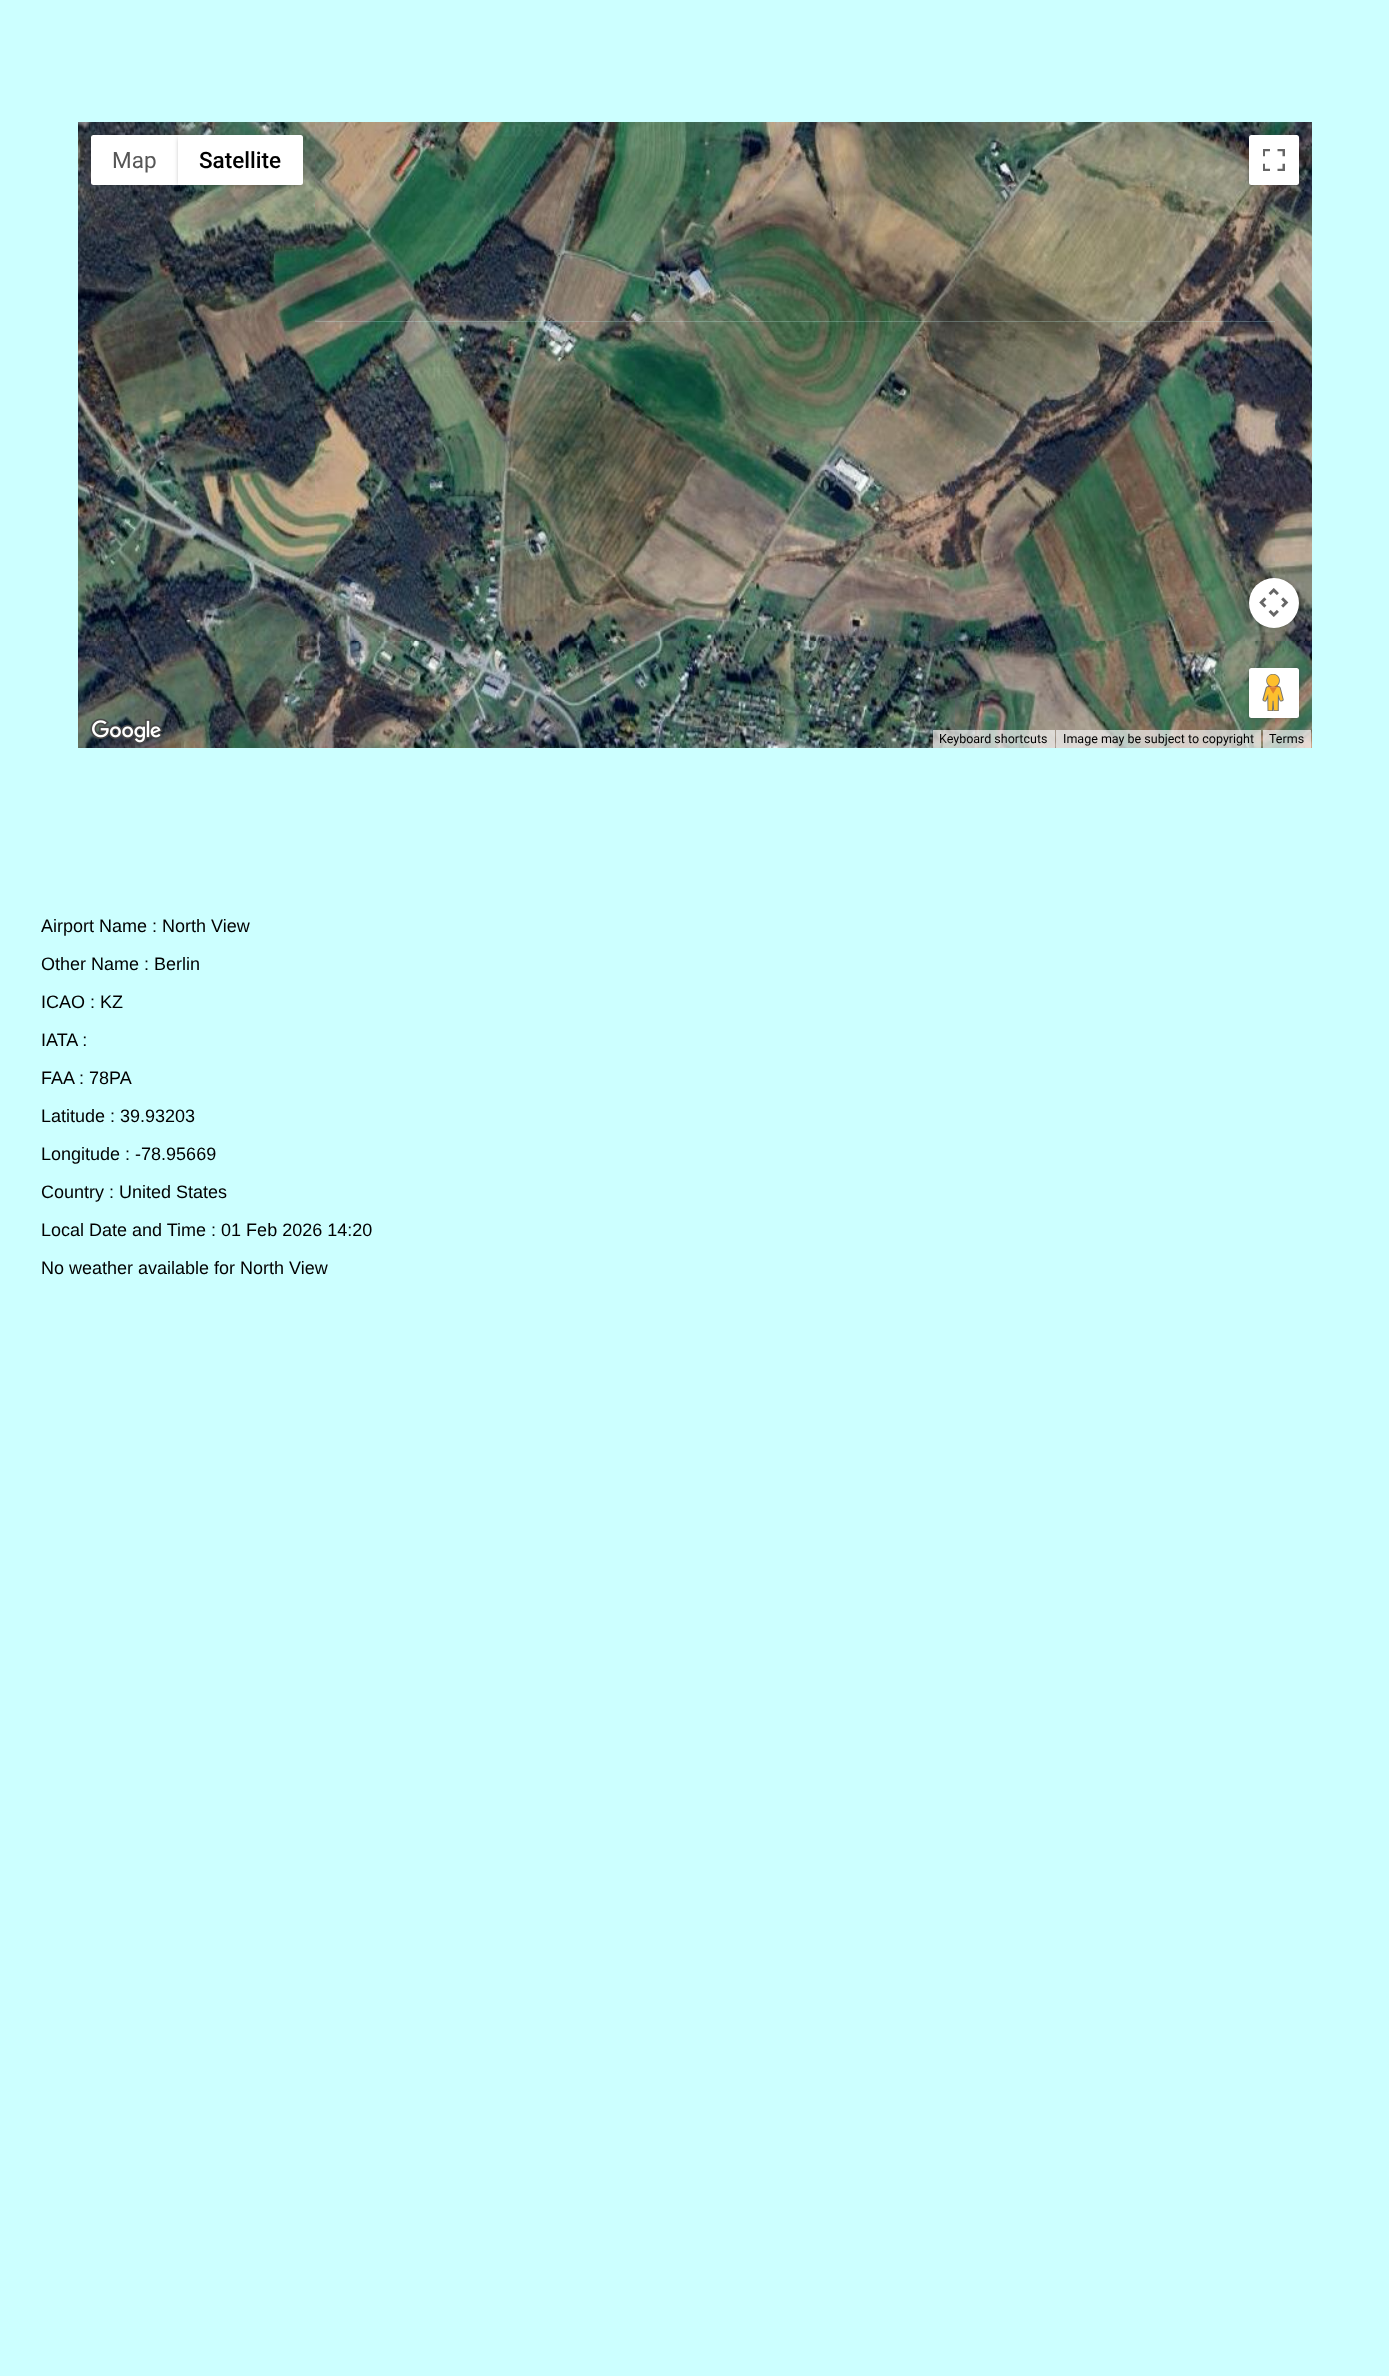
async function draw(canvas) {
  canvas.width = 1389;
  canvas.height = 2376;
  const ctx = canvas.getContext('2d');
  ctx.miterLimit = 4;
  ctx.fontKerning = 'normal';
  function label(s, x, y, font, color) {
    ctx.font = font;
    ctx.fillStyle = color;
    ctx.fillText(s, x, y);
  }
  function rect(x, y, w, h, color) {
    ctx.fillStyle = color;
    ctx.fillRect(x, y, w, h);
  }
  function roundedRect(x, y, w, h, r, color) {
    ctx.fillStyle = color;
    ctx.beginPath();
    ctx.roundRect(x, y, w, h, r);
    ctx.fill();
  }
  async function image(src, x, y, w, h) {
    const img = new Image();
    img.src = src;
    await img.decode();
    ctx.drawImage(img, x, y, w, h);
  }

  rect(0, 0, 1389, 2376, '#cff');
  await image('assets/img1.png', 78, 122, 237, 199);
  await image('assets/img2.png', 315, 122, 320, 199);
  await image('assets/img3.png', 635, 122, 320, 199);
  await image('assets/img4.png', 955, 122, 320, 199);
  await image('assets/img5.png', 1275, 122, 37, 199);
  await image('assets/img6.png', 78, 321, 237, 320);
  await image('assets/img7.png', 315, 321, 320, 320);
  await image('assets/img8.png', 635, 321, 320, 320);
  await image('assets/img9.png', 955, 321, 320, 320);
  await image('assets/img10.png', 1275, 321, 37, 320);
  await image('assets/img11.png', 78, 641, 237, 107);
  await image('assets/img12.png', 315, 641, 320, 107);
  await image('assets/img13.png', 635, 641, 320, 107);
  await image('assets/img14.png', 955, 641, 320, 107);
  await image('assets/img15.png', 1275, 641, 37, 107);
  ctx.fillStyle = '#0000004d';
  ctx.filter = 'blur(2.5px)';
  ctx.beginPath();
  ctx.roundRect(93, 138, 83, 47, 1);
  ctx.fill();
  ctx.filter = 'none';
  ctx.fillStyle = '#fff';
  ctx.beginPath();
  ctx.roundRect(91, 135, 87, 50, [2.5, 0, 0, 2.5]);
  ctx.fill();
  label('Map', 112, 168, '22.5px Roboto', '#565656');
  ctx.fillStyle = '#0000004d';
  ctx.filter = 'blur(2.5px)';
  ctx.beginPath();
  ctx.roundRect(179, 138, 122, 47, 1);
  ctx.fill();
  ctx.filter = 'none';
  ctx.fillStyle = '#fff';
  ctx.beginPath();
  ctx.roundRect(178, 135, 125, 50, [0, 2.5, 2.5, 0]);
  ctx.fill();
  label('Satellite', 199, 168, '500 22.5px Roboto', '#000');
  ctx.fillStyle = '#0000004d';
  ctx.filter = 'blur(2.5px)';
  ctx.beginPath();
  ctx.roundRect(1250, 138, 48, 47, 1);
  ctx.fill();
  ctx.filter = 'none';
  roundedRect(1249, 135, 50, 50, 2.5, '#fff');
  await image('assets/img16.png', 1263, 149, 22, 22);
  ctx.fillStyle = '#0000004d';
  ctx.filter = 'blur(2.5px)';
  ctx.beginPath();
  ctx.roundRect(1250, 580, 48, 48, 24);
  ctx.fill();
  ctx.filter = 'none';
  ctx.fillStyle = '#fff';
  ctx.beginPath();
  ctx.arc(1274, 603, 25, 0, 2 * Math.PI);
  ctx.fill();
  await image('assets/img17.png', 1259, 588, 30, 29);
  ctx.fillStyle = '#0000004d';
  ctx.filter = 'blur(2.5px)';
  ctx.beginPath();
  ctx.roundRect(1250, 670, 48, 48, 1);
  ctx.fill();
  ctx.filter = 'none';
  roundedRect(1249, 668, 50, 50, 2.5, '#fff');
  await image('assets/img18.png', 1262, 674, 22, 37);
  await image('assets/img19.png', 90, 718, 73, 26);
  rect(933, 730, 122, 18, '#f5f5f5b3');
  label('Keyboard shortcuts', 939, 743, '12.5px Roboto', '#000');
  rect(1056, 730, 205, 18, '#f5f5f5b3');
  label('Image may be subject to copyright', 1063, 743, '12.5px Roboto', '#000');
  rect(1263, 730, 48, 18, '#f5f5f5b3');
  label('Terms', 1269, 743, '12.5px Roboto', '#000');
  label('Airport Name : North View', 41, 932, '18px Liberation Sans', '#000');
  label('Other Name : Berlin', 41, 970, '18px Liberation Sans', '#000');
  label('ICAO : KZ', 41, 1008, '18px Liberation Sans', '#000');
  label('IATA :', 41, 1046, '18px Liberation Sans', '#000');
  label('FAA : 78PA', 41, 1084, '18px Liberation Sans', '#000');
  label('Latitude : 39.93203', 41, 1122, '18px Liberation Sans', '#000');
  label('Longitude : -78.95669', 41, 1160, '18px Liberation Sans', '#000');
  label('Country : United States', 41, 1198, '18px Liberation Sans', '#000');
  label('Local Date and Time : 01 Feb 2026 14:20', 41, 1236, '18px Liberation Sans', '#000');
  label('No weather available for North View', 41, 1274, '18px Liberation Sans', '#000');
}

draw(document.querySelector('canvas'));
